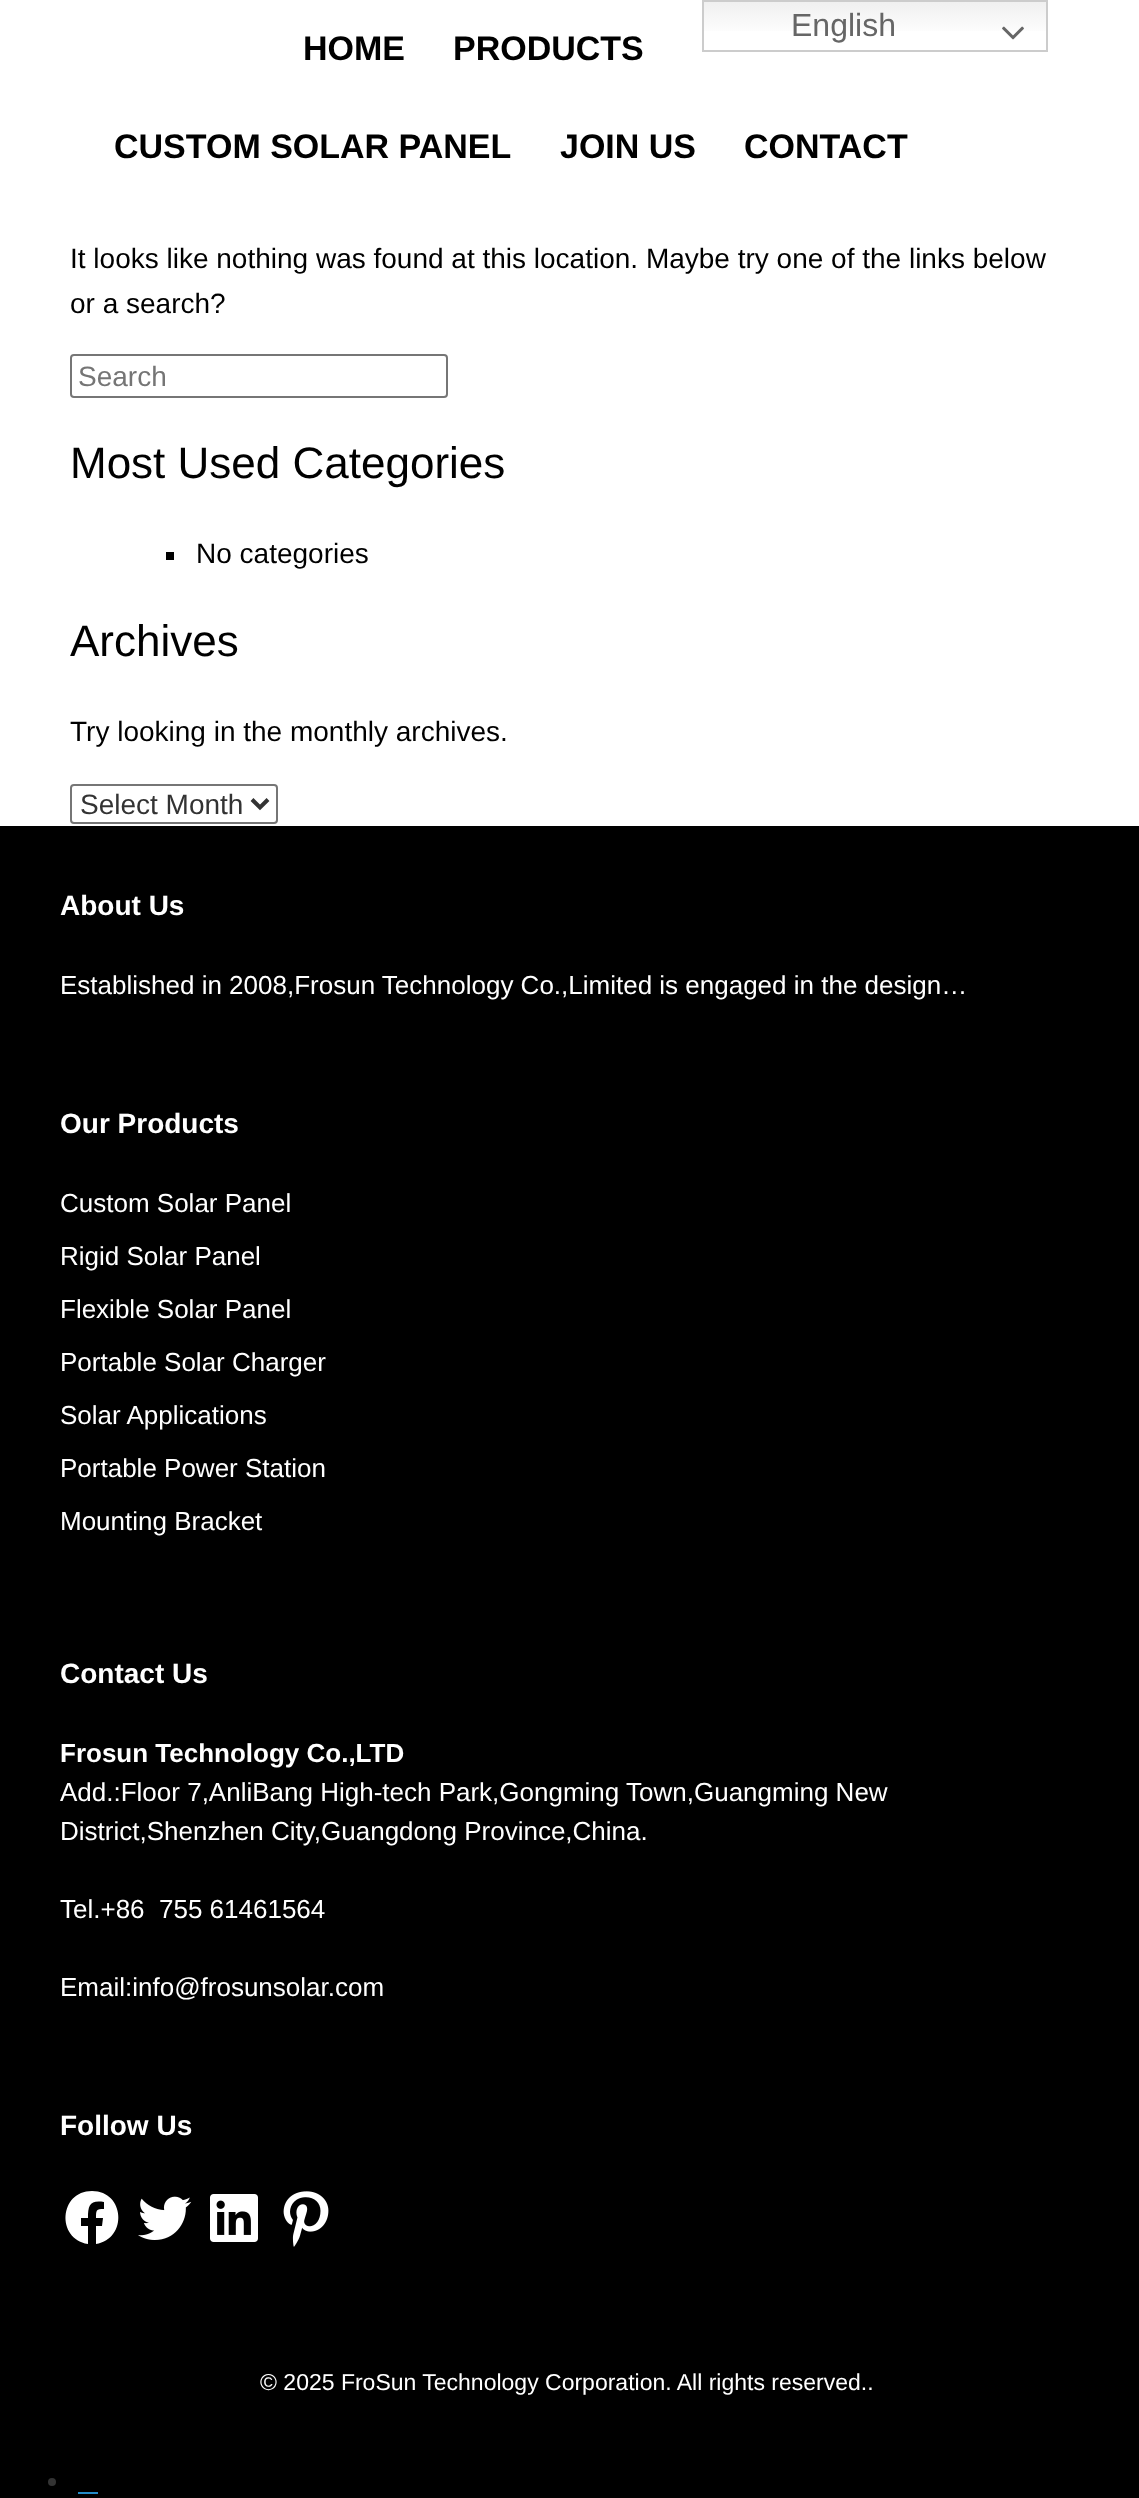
async function draw(canvas) {
  canvas.width = 1139;
  canvas.height = 2498;
  const ctx = canvas.getContext('2d');
  ctx.miterLimit = 4;
  ctx.fontKerning = 'normal';
  function label(s, x, y, font, color) {
    ctx.font = font;
    ctx.fillStyle = color;
    ctx.fillText(s, x, y);
  }
  function rect(x, y, w, h, color) {
    ctx.fillStyle = color;
    ctx.fillRect(x, y, w, h);
  }
  async function image(src, x, y, w, h) {
    const img = new Image();
    img.src = src;
    await img.decode();
    ctx.drawImage(img, x, y, w, h);
  }
  let gradient, path;

  rect(0, 0, 1139, 2498, '#000');
  rect(0, 0, 1139, 826, '#fff');
  gradient = ctx.createLinearGradient(875, 0, 875, 52);
  gradient.addColorStop(0, '#efefef');
  gradient.addColorStop(0.7, '#fff');
  ctx.fillStyle = gradient;
  ctx.fillRect(704, 2, 342, 29);
  ctx.strokeStyle = '#ccc';
  ctx.lineWidth = 2;
  ctx.strokeRect(703, 1, 344, 50);
  label('English', 791, 36, '32px Liberation Sans', '#666');
  await image('assets/img1.png', 1002, 26, 22, 14);
  label('HOME', 303, 60, 'bold 34px Liberation Sans', '#000');
  label('PRODUCTS', 453, 60, 'bold 34px Liberation Sans', '#000');
  label('CUSTOM SOLAR PANEL', 114, 158, 'bold 34px Liberation Sans', '#000');
  label('JOIN US', 560, 158, 'bold 34px Liberation Sans', '#000');
  label('CONTACT', 744, 158, 'bold 34px Liberation Sans', '#000');
  label('It looks like nothing was found at this location. Maybe try one of the links below', 70, 268, '28px Liberation Sans', '#000');
  label('or a search?', 70, 313, '28px Liberation Sans', '#000');
  ctx.beginPath();
  ctx.roundRect(71, 355, 376, 42, 3);
  ctx.strokeStyle = '#767676';
  ctx.stroke();
  label('Search', 78, 386, '28px Liberation Sans', '#757575');
  label('Most Used Categories', 70, 478, '44px Liberation Sans', '#000');
  rect(166, 552, 8, 8, '#000');
  label('No categories', 196, 563, '28px Liberation Sans', '#000');
  label('Archives', 70, 656, '44px Liberation Sans', '#000');
  label('Try looking in the monthly archives.', 70, 741, '28px Liberation Sans', '#000');
  ctx.beginPath();
  ctx.roundRect(71, 785, 206, 38, 3);
  ctx.stroke();
  path = new Path2D('M252 799.5L260 807.5L268 799.5');
  ctx.strokeStyle = '#333';
  ctx.lineWidth = 4;
  ctx.stroke(path);
  label('Select Month', 80, 814, '28px Liberation Sans', '#333');
  label('About Us', 60, 915, 'bold 28px Liberation Sans', '#fff');
  label('Established in 2008,Frosun Technology Co.,Limited is engaged in the design…', 60, 994, '26px Liberation Sans', '#fff');
  label('Our Products', 60, 1133, 'bold 28px Liberation Sans', '#fff');
  label('Custom Solar Panel', 60, 1212, '26px Liberation Sans', '#fff');
  label('Rigid Solar Panel', 60, 1265, '26px Liberation Sans', '#fff');
  label('Flexible Solar Panel', 60, 1318, '26px Liberation Sans', '#fff');
  label('Portable Solar Charger', 60, 1371, '26px Liberation Sans', '#fff');
  label('Solar Applications', 60, 1424, '26px Liberation Sans', '#fff');
  label('Portable Power Station', 60, 1477, '26px Liberation Sans', '#fff');
  label('Mounting Bracket', 60, 1530, '26px Liberation Sans', '#fff');
  label('Contact Us', 60, 1683, 'bold 28px Liberation Sans', '#fff');
  label('Frosun Technology Co.,LTD', 60, 1762, 'bold 26px Liberation Sans', '#fff');
  label('Add.:Floor 7,AnliBang High-tech Park,Gongming Town,Guangming New', 60, 1801, '26px Liberation Sans', '#fff');
  label('District,Shenzhen City,Guangdong Province,China.', 60, 1840, '26px Liberation Sans', '#fff');
  label('Tel.+86  755 61461564', 60, 1918, '26px Liberation Sans', '#fff');
  label('Email:info@frosunsolar.com', 60, 1996, '26px Liberation Sans', '#fff');
  label('Follow Us', 60, 2135, 'bold 28px Liberation Sans', '#fff');
  path = new Path2D('M92 2191C59 2191 56 2239 88 2244V2226H81V2218H88C88 2205 90 2200 104 2202V2209C96 2209 96 2210 96 2218H103L102 2226H96V2244C128 2239 125 2191 92 2191Z');
  ctx.fill(path);
  await image('assets/img2.png', 138, 2196, 54, 44);
  await image('assets/img3.png', 210, 2194, 48, 48);
  await image('assets/img4.png', 283, 2191, 46, 56);
  label('© 2025 FroSun Technology Corporation. All rights reserved..', 260, 2390, '23px Liberation Sans', '#fff');
  ctx.fillStyle = '#333';
  ctx.beginPath();
  ctx.arc(52, 2482, 4, 0, 2 * Math.PI);
  ctx.fill();
  rect(78, 2492, 20, 2, '#248cc8');
}

draw(document.querySelector('canvas'));
